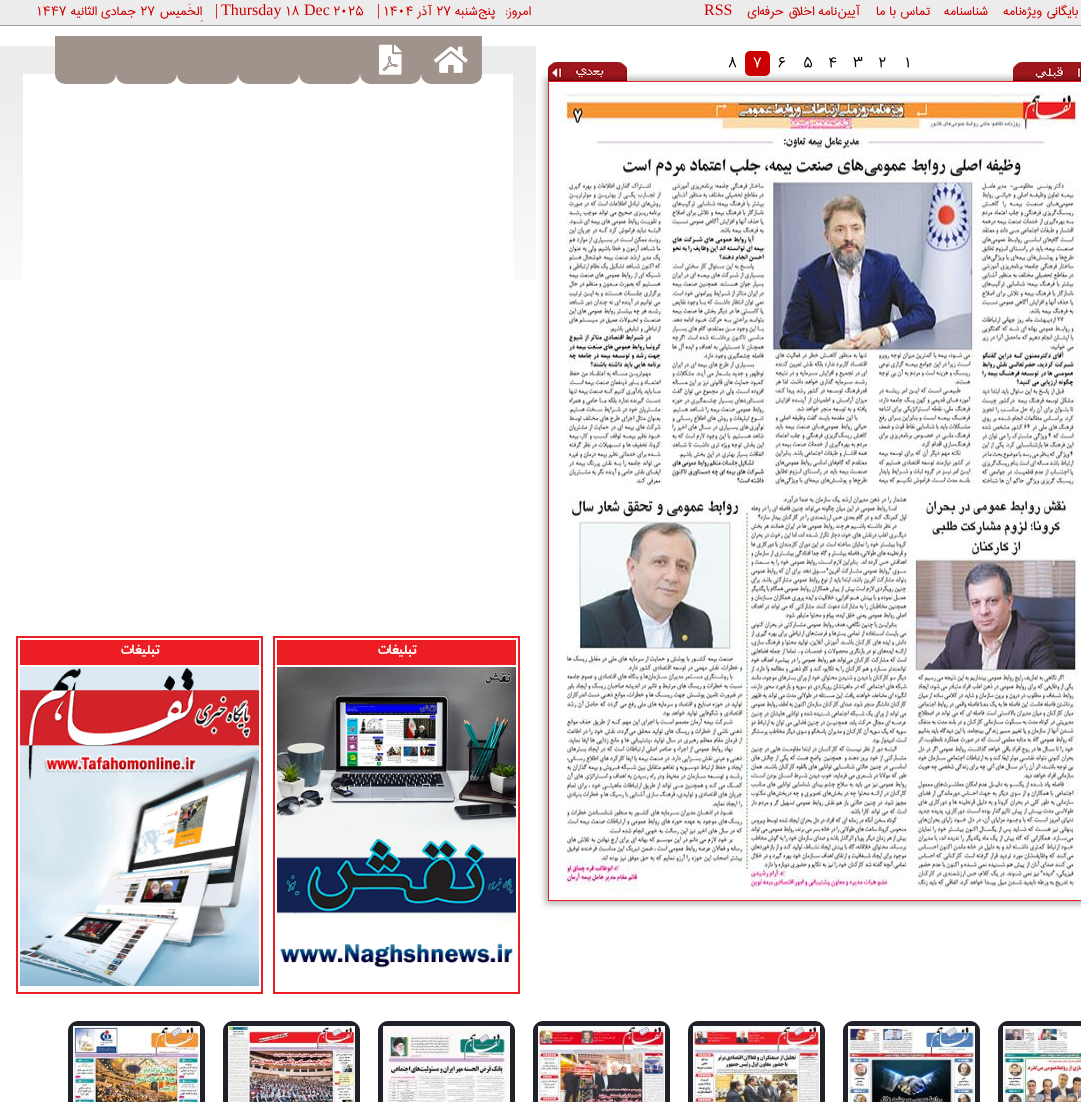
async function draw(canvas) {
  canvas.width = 1081;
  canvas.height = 1102;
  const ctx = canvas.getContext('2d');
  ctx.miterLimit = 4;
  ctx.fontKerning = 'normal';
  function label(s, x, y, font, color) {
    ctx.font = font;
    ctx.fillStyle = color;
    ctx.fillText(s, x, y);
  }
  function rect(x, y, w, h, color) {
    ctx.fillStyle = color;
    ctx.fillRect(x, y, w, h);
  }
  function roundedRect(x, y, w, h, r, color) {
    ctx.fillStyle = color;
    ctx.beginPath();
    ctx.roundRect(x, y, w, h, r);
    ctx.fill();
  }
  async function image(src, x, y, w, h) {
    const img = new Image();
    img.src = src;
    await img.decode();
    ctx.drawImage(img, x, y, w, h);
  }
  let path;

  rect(0, 0, 1081, 1102, '#fff');
  rect(0, 0, 1081, 25, '#ececec');
  rect(0, 25, 1081, 1, '#929b9f');
  ctx.direction = 'rtl';
  label('بایگانی ویژه‌نامه', 1078, 15, '16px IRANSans', '#c00');
  label('شناسنامه', 988, 15, '16px IRANSans', '#c00');
  label('تماس با ما', 930, 15, '16px IRANSans', '#c00');
  label('آیین‌نامه اخلاق حرفه‌ای', 860, 15, '16px IRANSans', '#c00');
  ctx.direction = 'ltr';
  label('RSS', 704, 15, '16px Liberation Serif', '#c00');
  ctx.direction = 'rtl';
  label('امروز:', 531, 15, '16px IRANSans', '#c00');
  label('پنج‌شنبه', 495, 15, '16px IRANSans', '#c00');
  ctx.direction = 'ltr';
  label('27', 436, 15, '16px IRANSans', '#c00');
  ctx.direction = 'rtl';
  label('آذر', 432, 15, '16px IRANSans', '#c00');
  ctx.direction = 'ltr';
  label('1404', 383, 15, '16px IRANSans', '#c00');
  label('|', 377, 15, '16px Liberation Serif', '#c00');
  label('2025', 333, 15, '16px IRANSans', '#c00');
  label('Dec', 304, 15, '16px Liberation Serif', '#c00');
  label('18', 285, 15, '16px IRANSans', '#c00');
  label('Thursday', 221, 15, '16px Liberation Serif', '#c00');
  label('|', 215, 15, '16px Liberation Serif', '#c00');
  ctx.direction = 'rtl';
  label('اِلخَميس', 202, 15, '16px IRANSans', '#c00');
  ctx.direction = 'ltr';
  label('٢٧', 140, 15, '16px IRANSans', '#c00');
  ctx.direction = 'rtl';
  label('جمادي الثانيه', 136, 15, '16px IRANSans', '#c00');
  ctx.direction = 'ltr';
  label('١٤٤٧', 36, 15, '16px IRANSans', '#c00');
  await image('assets/img4.png', 0, 46, 536, 234);
  ctx.save();
  path = new Path2D('M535 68H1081V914H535ZM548 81H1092V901H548Z');
  ctx.clip(path, 'evenodd');
  ctx.fillStyle = '#0000004d';
  ctx.filter = 'blur(3px)';
  ctx.beginPath();
  ctx.rect(545, 78, 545, 826);
  ctx.fill();
  ctx.filter = 'none';
  ctx.restore();
  await image('assets/img1.png', 1013, 62, 68, 19);
  label('1', 904, 67, '18px IRANSans', '#000');
  label('2', 878, 67, '18px IRANSans', '#000');
  label('3', 853, 67, '18px IRANSans', '#000');
  label('4', 828, 67, '18px IRANSans', '#000');
  label('5', 803, 67, '18px IRANSans', '#000');
  label('6', 778, 67, '18px IRANSans', '#000');
  roundedRect(745, 51, 25, 25, 5, '#c00');
  label('7', 753, 67, '18px IRANSans', '#fff');
  label('8', 728, 67, '18px IRANSans', '#000');
  await image('assets/img2.png', 548, 62, 79, 19);
  ctx.strokeStyle = '#ed1d24';
  ctx.strokeRect(548.5, 81.5, 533, 819);
  await image('assets/img3.png', 559, 92, 522, 798);
  rect(23, 74, 490, 206, '#fff');
  ctx.fillStyle = '#a0938b';
  ctx.beginPath();
  ctx.roundRect(421, 36, 61, 48, [0, 0, 10, 10]);
  ctx.fill();
  await image('assets/img5.png', 434, 46, 34, 27);
  ctx.beginPath();
  ctx.roundRect(360, 36, 61, 48, [0, 0, 10, 10]);
  ctx.fill();
  await image('assets/img6.png', 379, 44, 23, 31);
  ctx.beginPath();
  ctx.roundRect(299, 36, 61, 48, [0, 0, 10, 10]);
  ctx.fill();
  ctx.beginPath();
  ctx.roundRect(238, 36, 61, 48, [0, 0, 10, 10]);
  ctx.fill();
  ctx.beginPath();
  ctx.roundRect(177, 36, 61, 48, [0, 0, 10, 10]);
  ctx.fill();
  ctx.beginPath();
  ctx.roundRect(116, 36, 61, 48, [0, 0, 10, 10]);
  ctx.fill();
  ctx.beginPath();
  ctx.roundRect(55, 36, 61, 48, [0, 0, 10, 10]);
  ctx.fill();
  ctx.lineWidth = 2;
  ctx.strokeRect(274, 637, 245, 356);
  rect(277, 640, 239, 25, '#ed1d24');
  ctx.direction = 'rtl';
  label('تبلیغات', 417, 654, 'bold 16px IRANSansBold', '#fff');
  await image('assets/img7.png', 277, 667, 239, 301);
  ctx.strokeRect(17, 637, 245, 356);
  rect(20, 640, 239, 25, '#ed1d24');
  label('تبلیغات', 160, 654, 'bold 16px IRANSansBold', '#fff');
  await image('assets/img8.png', 20, 667, 239, 319);
  ctx.fillStyle = '#1f2229';
  path = new Path2D('M1008 1021H1081C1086.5 1021 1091 1025.5 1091 1031V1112H998V1031C998 1025.5 1002.5 1021 1008 1021Z');
  ctx.fill(path);
  await image('assets/img9.png', 1003, 1026, 78, 76);
  path = new Path2D('M853 1021H970C975.5 1021 980 1025.5 980 1031V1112H843V1031C843 1025.5 847.5 1021 853 1021Z');
  ctx.fill(path);
  await image('assets/img10.png', 848, 1026, 127, 76);
  path = new Path2D('M698 1021H815C820.5 1021 825 1025.5 825 1031V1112H688V1031C688 1025.5 692.5 1021 698 1021Z');
  ctx.fill(path);
  await image('assets/img11.png', 693, 1026, 127, 76);
  path = new Path2D('M543 1021H660C665.5 1021 670 1025.5 670 1031V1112H533V1031C533 1025.5 537.5 1021 543 1021Z');
  ctx.fill(path);
  await image('assets/img12.png', 538, 1026, 127, 76);
  path = new Path2D('M388 1021H505C510.5 1021 515 1025.5 515 1031V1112H378V1031C378 1025.5 382.5 1021 388 1021Z');
  ctx.fill(path);
  await image('assets/img13.png', 383, 1026, 127, 76);
  path = new Path2D('M233 1021H350C355.5 1021 360 1025.5 360 1031V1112H223V1031C223 1025.5 227.5 1021 233 1021Z');
  ctx.fill(path);
  await image('assets/img14.png', 228, 1026, 127, 76);
  path = new Path2D('M78 1021H195C200.5 1021 205 1025.5 205 1031V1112H68V1031C68 1025.5 72.5 1021 78 1021Z');
  ctx.fill(path);
  await image('assets/img15.png', 73, 1026, 127, 76);
}

draw(document.querySelector('canvas'));
